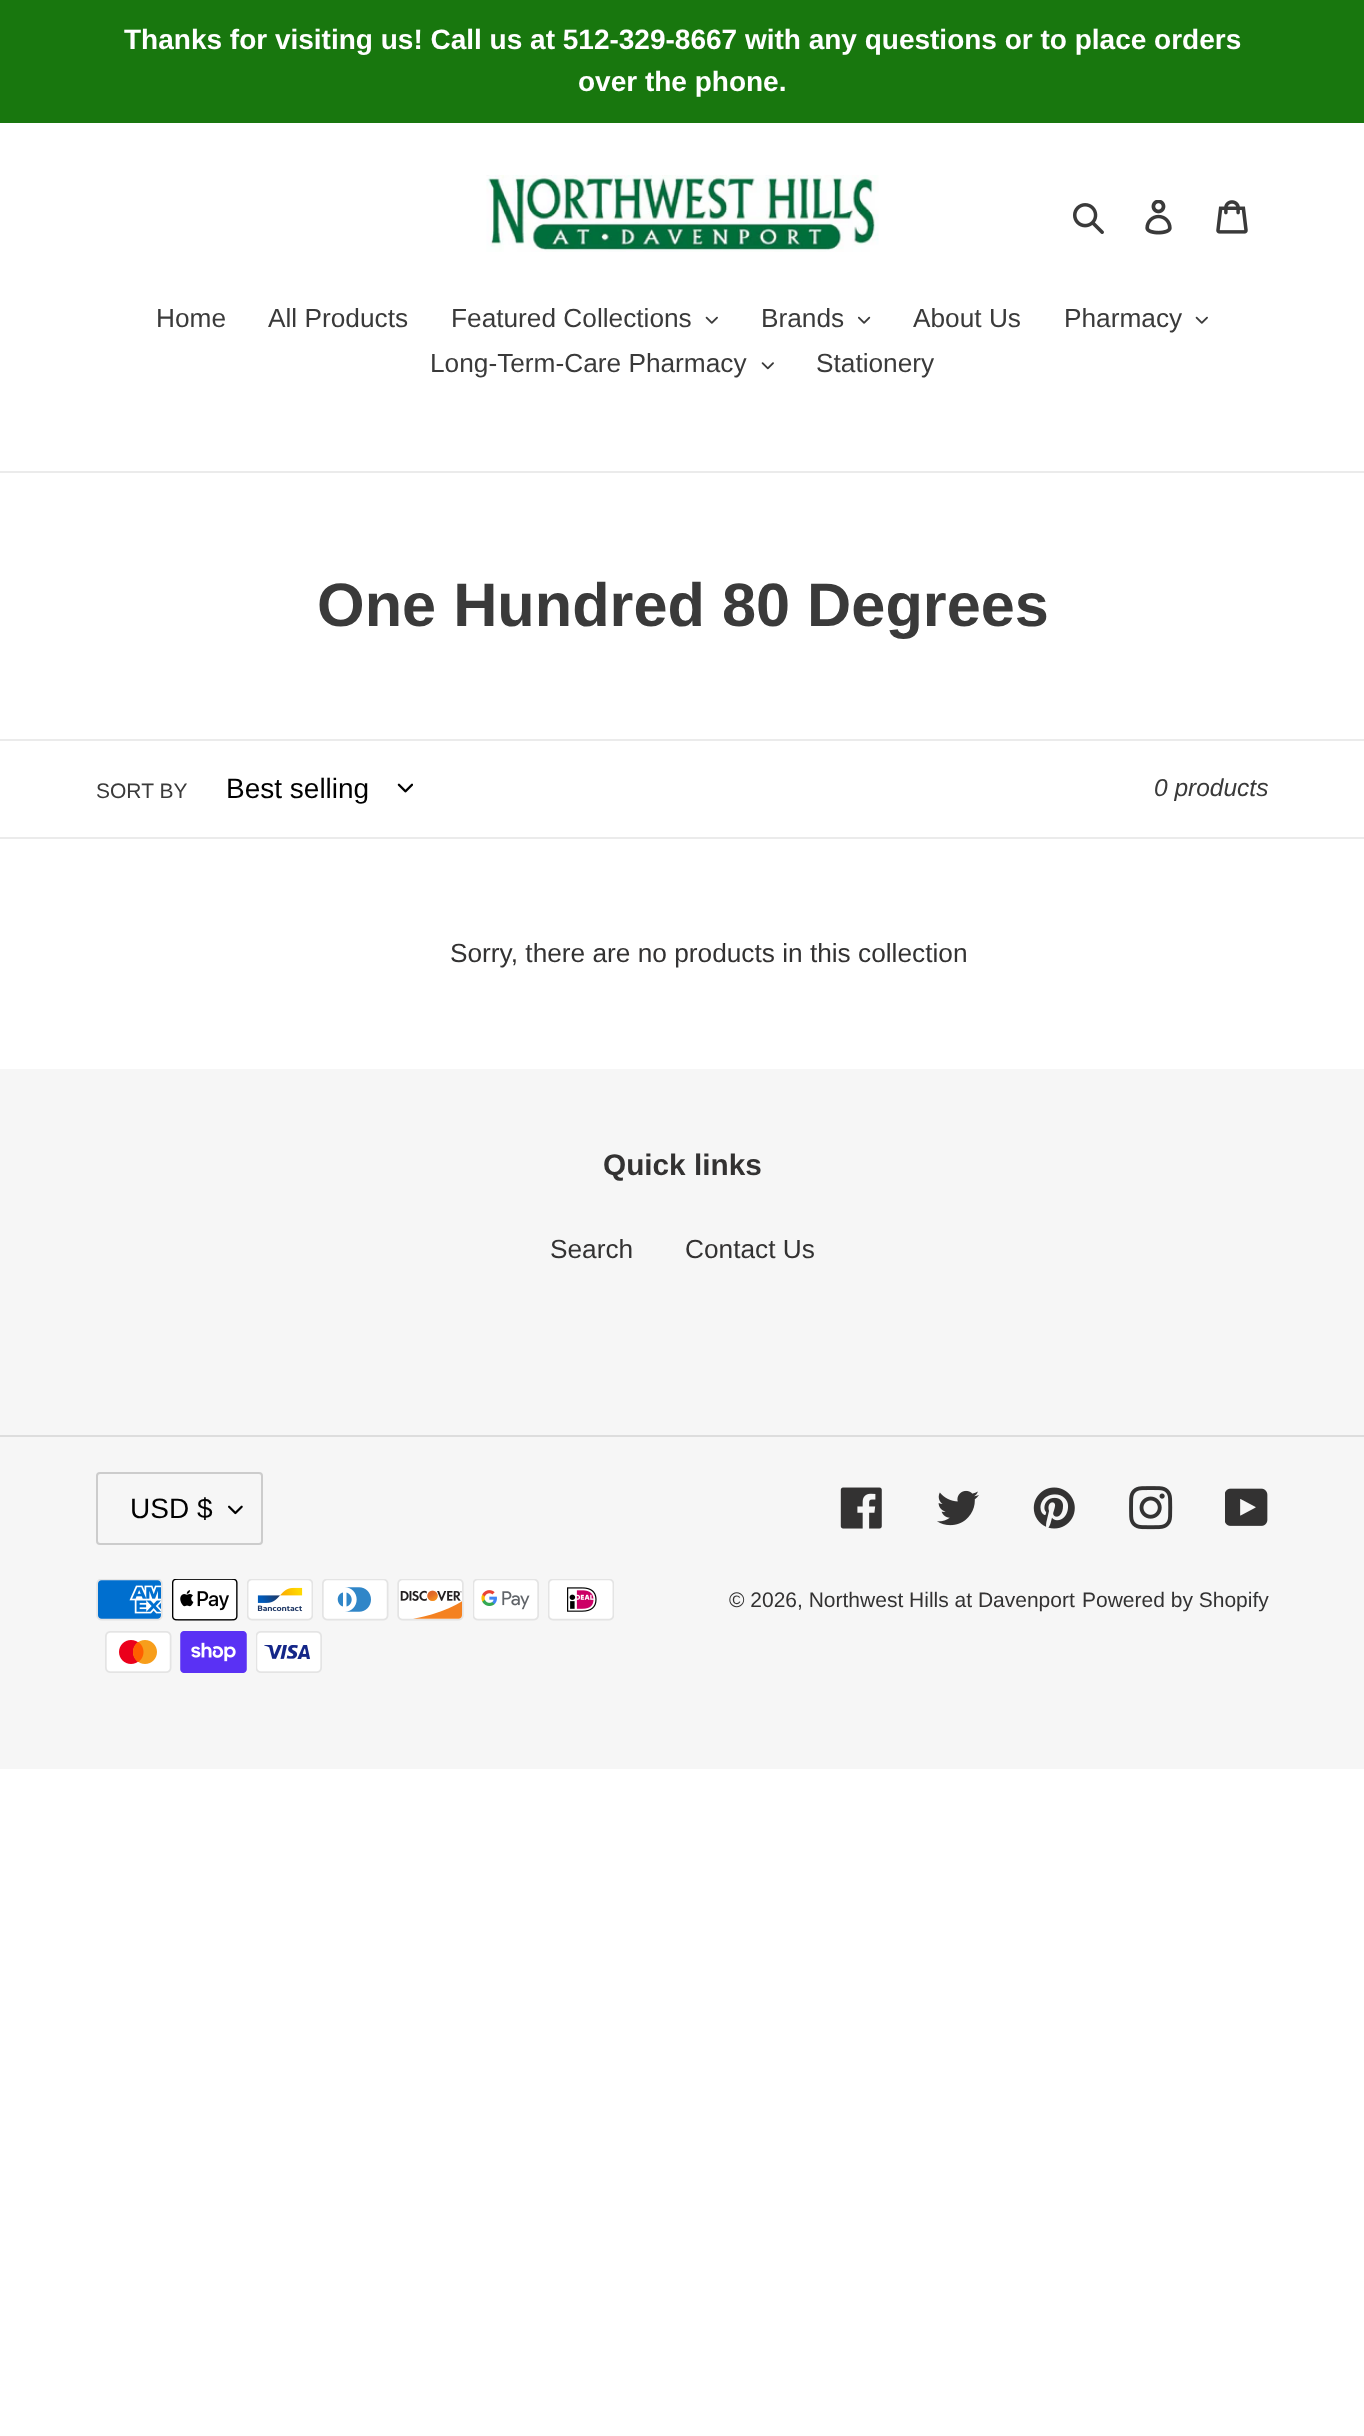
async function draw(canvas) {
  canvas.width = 1364;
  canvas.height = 2436;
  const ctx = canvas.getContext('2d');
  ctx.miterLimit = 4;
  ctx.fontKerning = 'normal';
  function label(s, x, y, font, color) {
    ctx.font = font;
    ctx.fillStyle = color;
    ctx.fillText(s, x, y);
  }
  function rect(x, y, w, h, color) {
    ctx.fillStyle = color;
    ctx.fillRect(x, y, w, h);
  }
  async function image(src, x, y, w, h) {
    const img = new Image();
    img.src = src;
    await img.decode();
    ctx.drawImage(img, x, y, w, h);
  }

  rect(0, 0, 1364, 2436, '#fff');
  rect(0, 0, 1364, 123, '#18770e');
  label('Thanks for visiting us! Call us at 512-329-8667 with any questions or to place orders', 124, 49, 'bold 28px Liberation Sans', '#fff');
  label('over the phone.', 578, 91, 'bold 28px Liberation Sans', '#fff');
  await image('assets/img1.png', 486, 175, 393, 77);
  await image('assets/img2.png', 1073, 203, 31, 31);
  await image('assets/img3.png', 1145, 200, 27, 35);
  await image('assets/img4.png', 1216, 200, 32, 34);
  rect(0, 471, 1364, 2, '#ebebeb');
  label('Home', 156, 327, '26.25px Liberation Sans', '#3a3a3a');
  label('All Products', 268, 327, '26.25px Liberation Sans', '#3a3a3a');
  label('Featured Collections', 451, 327, '26.25px Liberation Sans', '#3a3a3a');
  await image('assets/img5.png', 705, 316, 13, 8);
  label('Brands', 761, 327, '26.25px Liberation Sans', '#3a3a3a');
  await image('assets/img6.png', 858, 316, 13, 8);
  label('About Us', 913, 327, '26.25px Liberation Sans', '#3a3a3a');
  label('Pharmacy', 1064, 327, '26.25px Liberation Sans', '#3a3a3a');
  await image('assets/img5.png', 1195, 316, 13, 8);
  label('Long-Term-Care Pharmacy', 430, 372, '26.25px Liberation Sans', '#3a3a3a');
  await image('assets/img7.png', 761, 362, 13, 8);
  label('Stationery', 816, 372, '26.25px Liberation Sans', '#3a3a3a');
  label('One Hundred 80 Degrees', 317, 626, 'bold 61.25px Liberation Sans', '#3a3a3a');
  rect(0, 739, 1364, 2, '#ebebeb');
  rect(0, 837, 1364, 2, '#ebebeb');
  label('SORT BY', 96, 798, '21px Liberation Sans', '#3a3a3a');
  label('Best selling', 226, 798, '28px Liberation Sans', '#000');
  await image('assets/img8.png', 397, 783, 16, 10);
  label('0 products', 1154, 796, 'italic 24.5px Liberation Sans', '#3a3a3a');
  label('Sorry, there are no products in this collection', 450, 962, '26.25px Liberation Sans', '#333232');
  rect(0, 1069, 1364, 700, '#f6f6f6');
  label('Quick links', 603, 1175, 'bold 29.75px Liberation Sans', '#333232');
  label('Search', 550, 1258, '26.25px Liberation Sans', '#333232');
  label('Contact Us', 685, 1258, '26.25px Liberation Sans', '#333232');
  rect(0, 1435, 1364, 2, '#ddd');
  await image('assets/img9.png', 228, 1505, 15, 10);
  ctx.beginPath();
  ctx.roundRect(97, 1473, 165, 71, 3);
  ctx.strokeStyle = '#ccc';
  ctx.lineWidth = 2;
  ctx.stroke();
  label('USD $', 130, 1518, '28px Liberation Sans', '#000');
  await image('assets/img10.png', 840, 1487, 42, 42);
  await image('assets/img11.png', 937, 1490, 42, 36);
  await image('assets/img12.png', 1033, 1487, 42, 42);
  await image('assets/img13.png', 1129, 1486, 44, 44);
  await image('assets/img14.png', 1225, 1488, 43, 38);
  await image('assets/img15.png', 96, 1579, 67, 42);
  await image('assets/img16.png', 172, 1579, 66, 42);
  await image('assets/img17.png', 247, 1579, 66, 42);
  await image('assets/img18.png', 322, 1579, 67, 42);
  await image('assets/img19.png', 397, 1579, 67, 42);
  await image('assets/img20.png', 473, 1579, 66, 42);
  await image('assets/img21.png', 548, 1579, 66, 42);
  await image('assets/img22.png', 105, 1631, 67, 42);
  await image('assets/img23.png', 180, 1631, 67, 42);
  await image('assets/img24.png', 256, 1631, 66, 42);
  label('© 2026, Northwest Hills at Davenport', 729, 1607, '21px Liberation Sans', '#333232');
  label('Powered by Shopify', 1082, 1607, '21px Liberation Sans', '#333232');
}

draw(document.querySelector('canvas'));
